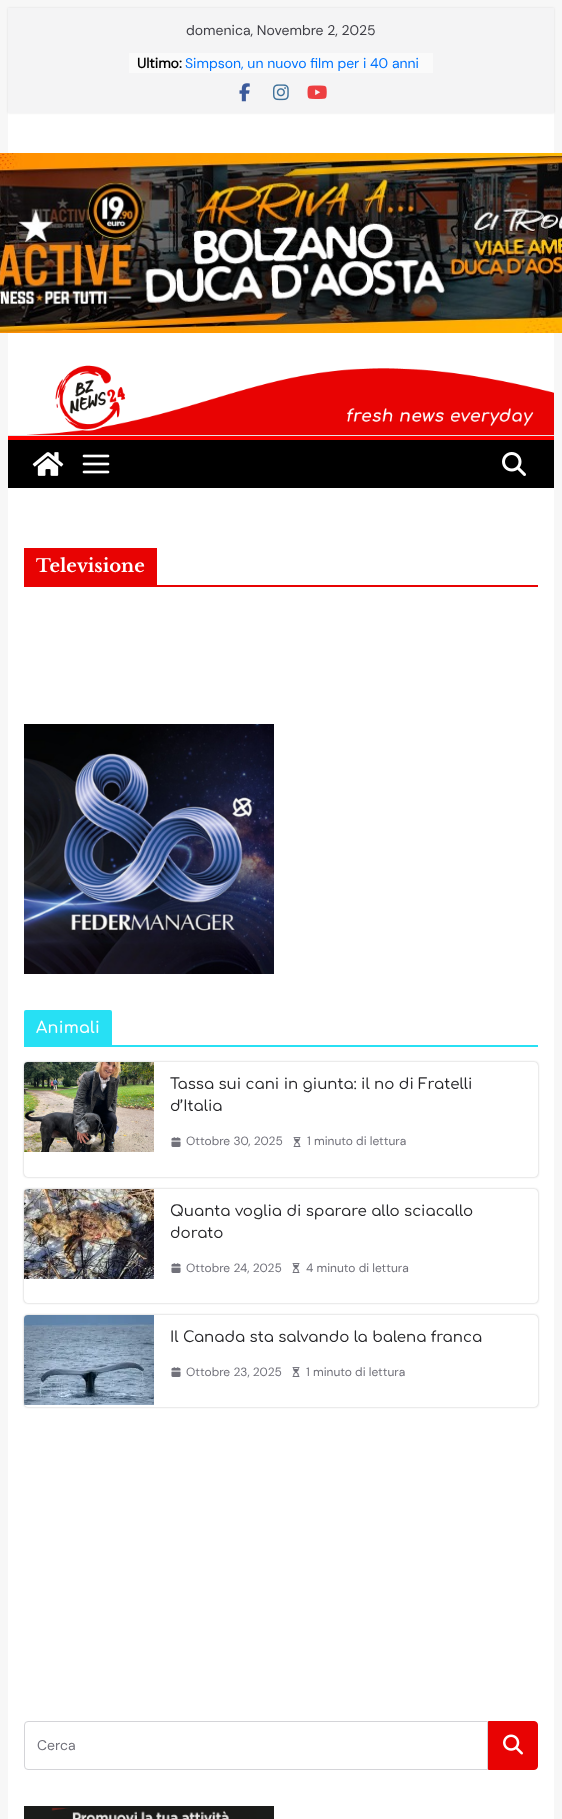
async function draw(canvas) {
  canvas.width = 562;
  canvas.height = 1819;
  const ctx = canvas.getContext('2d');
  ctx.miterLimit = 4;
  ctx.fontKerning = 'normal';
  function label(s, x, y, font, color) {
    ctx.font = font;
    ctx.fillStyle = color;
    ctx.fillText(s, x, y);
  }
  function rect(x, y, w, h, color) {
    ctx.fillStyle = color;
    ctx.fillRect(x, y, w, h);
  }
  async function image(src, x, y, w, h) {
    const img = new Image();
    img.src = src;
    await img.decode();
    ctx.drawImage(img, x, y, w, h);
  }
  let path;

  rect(0, 0, 562, 1819, '#f7f7f7');
  rect(8, 113, 546, 322, '#fff');
  ctx.fillStyle = '#0000001a';
  ctx.filter = 'blur(1px)';
  ctx.beginPath();
  ctx.rect(8, 8, 546, 105);
  ctx.fill();
  ctx.filter = 'none';
  rect(8, 8, 546, 105, '#f4f4f5');
  label('domenica, Novembre 2, 2025', 186, 35, '14px DM Sans', '#3f3f46');
  rect(129, 53, 304, 20, '#fafafa');
  label('Ultimo:', 137, 68, 'bold 14px DM Sans', '#000');
  label('Simpson, un nuovo film per i 40 anni', 185, 68, '14px DM Sans', '#0074ff');
  await image('assets/img1.png', 239, 83, 11, 19);
  await image('assets/img2.png', 273, 84, 16, 17);
  await image('assets/img3.png', 307, 85, 20, 14);
  await image('assets/img4.png', 0, 153, 562, 180);
  await image('assets/img5.png', 27, 365, 527, 70);
  rect(8, 435, 546, 1, '#e4e4e7');
  rect(8, 440, 546, 48, '#000');
  rect(8, 436, 546, 4, '#f00');
  await image('assets/img6.png', 32, 452, 32, 24);
  await image('assets/img7.png', 82, 454, 28, 20);
  await image('assets/img8.png', 502, 452, 24, 24);
  rect(8, 488, 546, 1331, '#fff');
  rect(24, 585, 514, 2, '#e80303');
  rect(24, 548, 133, 37, '#e80303');
  label('Televisione', 36, 572, 'bold 18px Libre Baskerville', '#fff');
  await image('assets/img9.png', 24, 724, 250, 250);
  rect(24, 1045, 514, 2, '#27e0f4');
  ctx.beginPath();
  ctx.roundRect(24, 1010, 88, 35, [2, 2, 0, 0]);
  ctx.fill();
  ctx.letterSpacing = '0.25px';
  label('Animali', 36, 1033, '600 16px Comfortaa', '#fff');
  ctx.save();
  path = new Path2D('M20 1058H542V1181H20ZM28 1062H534C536 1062 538 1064 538 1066V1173C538 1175 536 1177 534 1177H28C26 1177 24 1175 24 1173V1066C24 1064 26 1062 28 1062Z');
  ctx.clip(path, 'evenodd');
  ctx.fillStyle = '#0000003d';
  ctx.filter = 'blur(1px)';
  ctx.beginPath();
  ctx.roundRect(24, 1062, 514, 115, 4);
  ctx.fill();
  ctx.filter = 'none';
  ctx.restore();
  await image('assets/img10.png', 24, 1062, 130, 90);
  ctx.letterSpacing = '0px';
  label('Tassa sui cani in giunta: il no di Fratelli', 170, 1089, '500 15px Comfortaa', '#27272a');
  label('d’Italia', 170, 1111, '500 15px Comfortaa', '#27272a');
  await image('assets/img11.png', 171, 1137, 10, 10);
  label('Ottobre 30, 2025', 186, 1145, '12px DM Sans', '#71717a');
  await image('assets/img12.png', 293, 1137, 8, 10);
  label('1 minuto di lettura', 307, 1145, '12px DM Sans', '#71717a');
  ctx.save();
  path = new Path2D('M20 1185H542V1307H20ZM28 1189H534C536 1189 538 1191 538 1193V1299C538 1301 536 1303 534 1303H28C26 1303 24 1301 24 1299V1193C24 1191 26 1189 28 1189Z');
  ctx.clip(path, 'evenodd');
  ctx.fillStyle = '#0000003d';
  ctx.filter = 'blur(1px)';
  ctx.beginPath();
  ctx.roundRect(24, 1189, 514, 114, 4);
  ctx.fill();
  ctx.filter = 'none';
  ctx.restore();
  await image('assets/img13.png', 24, 1189, 130, 90);
  label('Quanta voglia di sparare allo sciacallo', 170, 1216, '500 15px Comfortaa', '#27272a');
  label('dorato', 170, 1238, '500 15px Comfortaa', '#27272a');
  await image('assets/img11.png', 171, 1263, 10, 10);
  label('Ottobre 24, 2025', 186, 1272, '12px DM Sans', '#71717a');
  await image('assets/img12.png', 292, 1263, 8, 10);
  label('4 minuto di lettura', 306, 1272, '12px DM Sans', '#71717a');
  ctx.save();
  path = new Path2D('M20 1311H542V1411H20ZM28 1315H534C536 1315 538 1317 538 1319V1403C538 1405 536 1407 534 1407H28C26 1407 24 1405 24 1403V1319C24 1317 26 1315 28 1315Z');
  ctx.clip(path, 'evenodd');
  ctx.fillStyle = '#0000003d';
  ctx.filter = 'blur(1px)';
  ctx.beginPath();
  ctx.roundRect(24, 1315, 514, 92, 4);
  ctx.fill();
  ctx.filter = 'none';
  ctx.restore();
  await image('assets/img14.png', 24, 1315, 130, 90);
  label('Il Canada sta salvando la balena franca', 170, 1342, '500 15px Comfortaa', '#27272a');
  await image('assets/img11.png', 171, 1367, 10, 10);
  label('Ottobre 23, 2025', 186, 1376, '12px DM Sans', '#71717a');
  await image('assets/img12.png', 292, 1367, 8, 10);
  label('1 minuto di lettura', 306, 1376, '12px DM Sans', '#71717a');
  ctx.beginPath();
  ctx.roundRect(24.5, 1721.5, 463, 48, [3.5, 0, 0, 3.5]);
  ctx.strokeStyle = '#d4d4d8';
  ctx.stroke();
  label('Cerca', 37, 1750, '14px DM Sans', '#71717a');
  ctx.fillStyle = '#e80303';
  ctx.beginPath();
  ctx.roundRect(488.5, 1721.5, 49, 48, [0, 3.5, 3.5, 0]);
  ctx.fill();
  ctx.strokeStyle = '#e80303';
  ctx.stroke();
  await image('assets/img15.png', 503, 1734, 20, 21);
  await image('assets/img16.png', 24, 1806, 250, 13);
}

draw(document.querySelector('canvas'));
